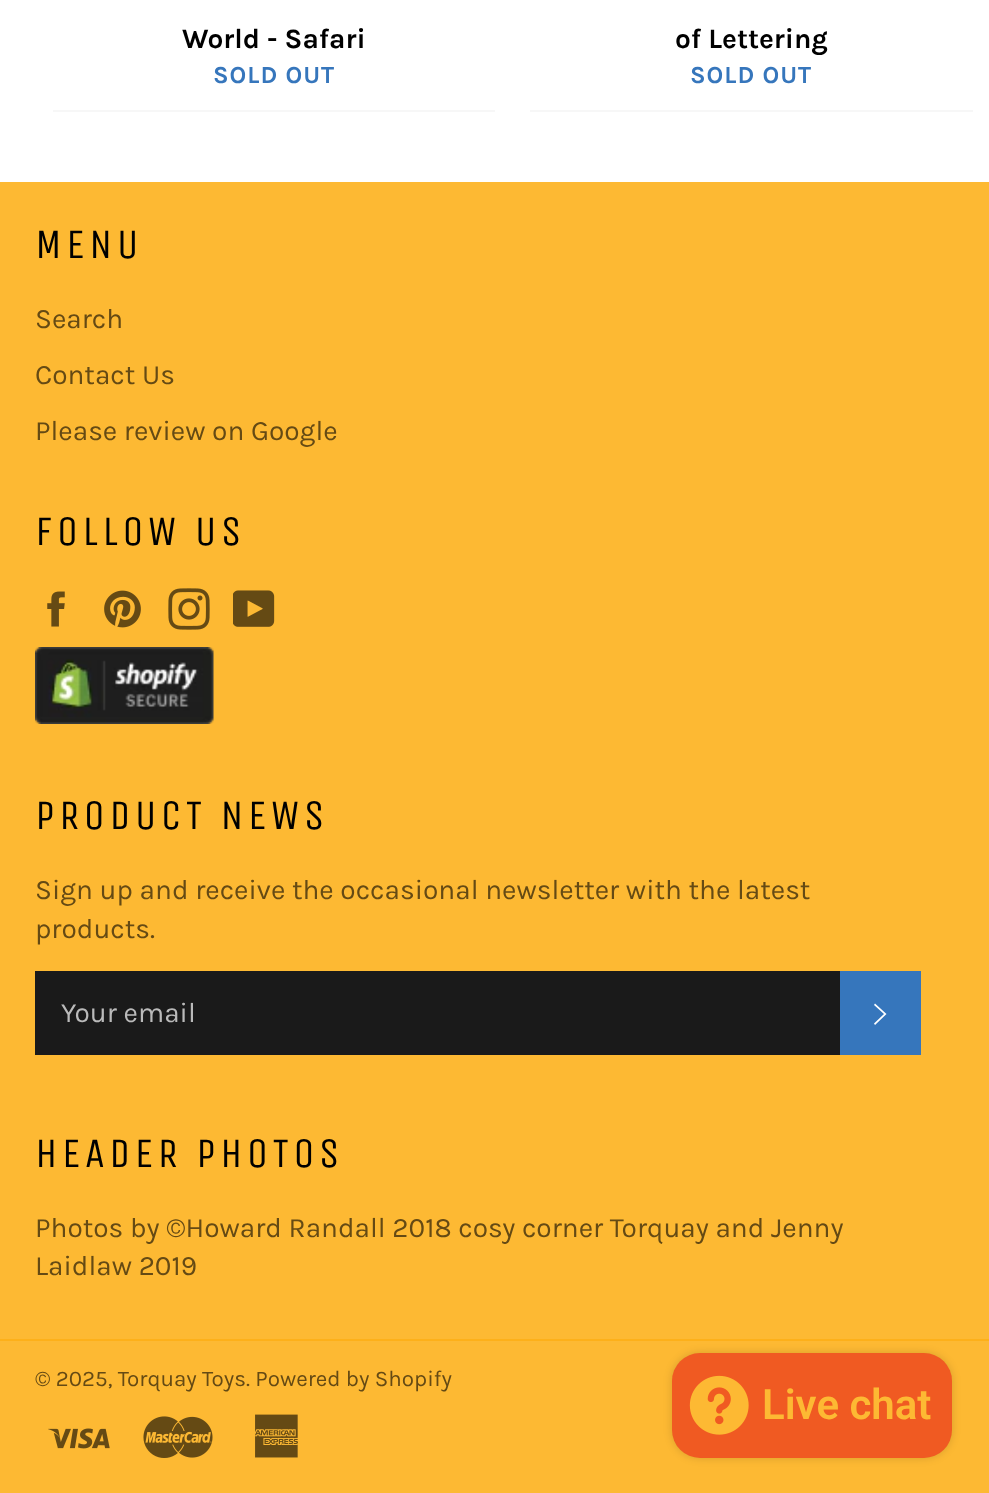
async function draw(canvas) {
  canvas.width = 989;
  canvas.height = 1493;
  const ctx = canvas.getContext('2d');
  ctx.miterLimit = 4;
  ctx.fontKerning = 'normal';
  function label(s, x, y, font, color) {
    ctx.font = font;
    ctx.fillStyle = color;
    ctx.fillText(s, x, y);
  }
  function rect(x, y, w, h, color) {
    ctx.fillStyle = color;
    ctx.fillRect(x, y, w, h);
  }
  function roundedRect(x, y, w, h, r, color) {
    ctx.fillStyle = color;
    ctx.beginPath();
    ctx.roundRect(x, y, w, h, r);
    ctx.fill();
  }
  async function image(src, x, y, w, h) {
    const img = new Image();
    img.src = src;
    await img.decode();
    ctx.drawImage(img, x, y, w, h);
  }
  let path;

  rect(0, 0, 989, 1493, '#fff');
  rect(53, 110, 442, 2, '#f7f7f7');
  label('World - Safari', 182, 48, 'bold 28px Karla', '#000');
  ctx.letterSpacing = '1px';
  label('SOLD OUT', 213, 83, 'bold 24.5px Karla', '#3676bc');
  rect(530, 110, 443, 2, '#f7f7f7');
  ctx.letterSpacing = '0px';
  label('of Lettering', 675, 48, 'bold 28px Karla', '#000');
  ctx.letterSpacing = '1px';
  label('SOLD OUT', 690, 83, 'bold 24.5px Karla', '#3676bc');
  rect(0, 182, 989, 1311, '#fdb933');
  ctx.letterSpacing = '4.25px';
  label('MENU', 35, 258, '42px Unica One', '#000');
  ctx.letterSpacing = '0px';
  label('Search', 35, 328, '28px Karla', '#654a14');
  label('Contact Us', 35, 384, '28px Karla', '#654a14');
  label('Please review on Google', 35, 440, '28px Karla', '#654a14');
  ctx.letterSpacing = '4.25px';
  label('FOLLOW US', 35, 545, '42px Unica One', '#000');
  await image('assets/img1.png', 47, 591, 18, 36);
  await image('assets/img2.png', 104, 590, 37, 38);
  await image('assets/img3.png', 168, 588, 42, 42);
  await image('assets/img4.png', 233, 590, 42, 37);
  await image('assets/img5.png', 35, 647, 179, 77);
  label('PRODUCT NEWS', 35, 829, '42px Unica One', '#000');
  ctx.letterSpacing = '0px';
  label('Sign up and receive the occasional newsletter with the latest', 35, 899, '28px Karla', '#654a14');
  label('products.', 35, 938, '28px Karla', '#654a14');
  rect(35, 971, 805, 84, '#1a1a1a');
  label('Your email', 61, 1022, '28px Karla', '#bababa');
  rect(840, 971, 81, 84, '#3676bc');
  ctx.fillStyle = '#fff';
  path = new Path2D('M874 1005L875 1003.5L886.5 1014L875 1025L874 1023.5L884 1014Z');
  ctx.fill(path);
  ctx.letterSpacing = '4.25px';
  label('HEADER PHOTOS', 35, 1167, '42px Unica One', '#000');
  ctx.letterSpacing = '0px';
  label('Photos by ©Howard Randall 2018 cosy corner Torquay and Jenny', 35, 1237, '28px Karla', '#654a14');
  label('Laidlaw 2019', 35, 1275, '28px Karla', '#654a14');
  rect(0, 1339, 989, 2, '#fdb01a');
  label('© 2025, Torquay Toys. Powered by Shopify', 35, 1386, '22.4px Karla', '#654a14');
  await image('assets/img6.png', 48, 1428, 62, 21);
  await image('assets/img7.png', 143, 1416, 70, 42);
  await image('assets/img8.png', 255, 1414, 43, 44);
  ctx.fillStyle = '#00000026';
  ctx.filter = 'blur(4.5px)';
  ctx.beginPath();
  ctx.roundRect(672, 1353, 280, 105, 28);
  ctx.fill();
  ctx.filter = 'none';
  roundedRect(672, 1353, 280, 105, 28, '#f05a22');
  await image('assets/img9.png', 689, 1375, 60, 60);
  label('Live chat', 762, 1419, '600 42px Roboto', '#fdb933');
}

draw(document.querySelector('canvas'));
